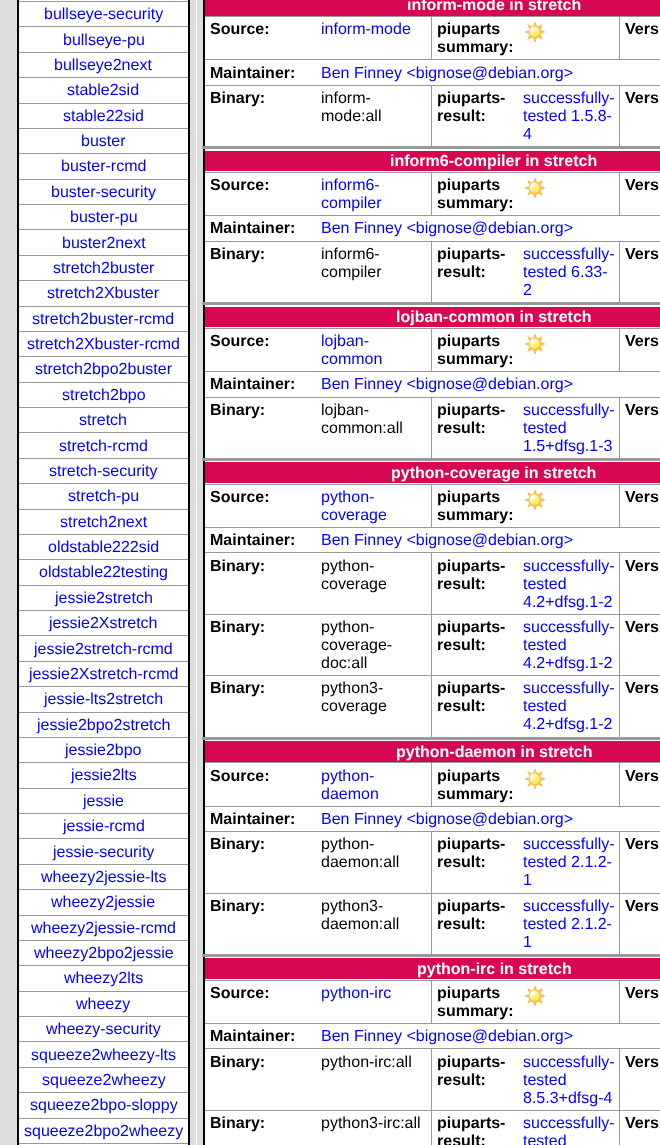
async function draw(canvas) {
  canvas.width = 660;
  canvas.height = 1145;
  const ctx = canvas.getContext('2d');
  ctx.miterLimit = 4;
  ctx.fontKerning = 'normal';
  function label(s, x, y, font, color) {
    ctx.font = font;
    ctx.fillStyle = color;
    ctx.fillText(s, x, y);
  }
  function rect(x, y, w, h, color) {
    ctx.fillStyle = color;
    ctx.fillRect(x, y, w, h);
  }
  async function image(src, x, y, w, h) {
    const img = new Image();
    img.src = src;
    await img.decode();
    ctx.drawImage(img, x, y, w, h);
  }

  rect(0, 0, 660, 1145, '#ddd');
  rect(196, 0, 1, 1145, '#fff');
  rect(19, 0, 169, 1145, '#fff');
  rect(18, 1, 171, 1, '#999');
  rect(18, 26, 171, 1, '#999');
  rect(18, 52, 171, 1, '#999');
  rect(18, 77, 171, 1, '#999');
  rect(18, 103, 171, 1, '#999');
  rect(18, 128, 171, 1, '#999');
  rect(18, 153, 171, 1, '#999');
  rect(18, 179, 171, 1, '#999');
  rect(18, 204, 171, 1, '#999');
  rect(18, 229, 171, 1, '#999');
  rect(18, 255, 171, 1, '#999');
  rect(18, 280, 171, 1, '#999');
  rect(18, 306, 171, 1, '#999');
  rect(18, 331, 171, 1, '#999');
  rect(18, 356, 171, 1, '#999');
  rect(18, 382, 171, 1, '#999');
  rect(18, 407, 171, 1, '#999');
  rect(18, 432, 171, 1, '#999');
  rect(18, 458, 171, 1, '#999');
  rect(18, 483, 171, 1, '#999');
  rect(18, 509, 171, 1, '#999');
  rect(18, 534, 171, 1, '#999');
  rect(18, 559, 171, 1, '#999');
  rect(18, 585, 171, 1, '#999');
  rect(18, 610, 171, 1, '#999');
  rect(18, 635, 171, 1, '#999');
  rect(18, 661, 171, 1, '#999');
  rect(18, 686, 171, 1, '#999');
  rect(18, 712, 171, 1, '#999');
  rect(18, 737, 171, 1, '#999');
  rect(18, 762, 171, 1, '#999');
  rect(18, 788, 171, 1, '#999');
  rect(18, 813, 171, 1, '#999');
  rect(18, 838, 171, 1, '#999');
  rect(18, 864, 171, 1, '#999');
  rect(18, 889, 171, 1, '#999');
  rect(18, 915, 171, 1, '#999');
  rect(18, 940, 171, 1, '#999');
  rect(18, 965, 171, 1, '#999');
  rect(18, 991, 171, 1, '#999');
  rect(18, 1016, 171, 1, '#999');
  rect(18, 1041, 171, 1, '#999');
  rect(18, 1067, 171, 1, '#999');
  rect(18, 1092, 171, 1, '#999');
  rect(18, 1118, 171, 1, '#999');
  rect(18, 1143, 171, 1, '#999');
  rect(188, 0, 2, 1145, '#000');
  rect(17, 0, 2, 1145, '#000');
  label('bullseye-security', 44, 19, '16px Liberation Sans', '#00f');
  label('bullseye-pu', 63, 45, '16px Liberation Sans', '#00f');
  label('bullseye2next', 54, 70, '16px Liberation Sans', '#00f');
  label('stable2sid', 67, 95, '16px Liberation Sans', '#00f');
  label('stable22sid', 63, 121, '16px Liberation Sans', '#00f');
  label('buster', 81, 146, '16px Liberation Sans', '#00f');
  label('buster-rcmd', 61, 171, '16px Liberation Sans', '#00f');
  label('buster-security', 51, 197, '16px Liberation Sans', '#00f');
  label('buster-pu', 70, 222, '16px Liberation Sans', '#00f');
  label('buster2next', 62, 248, '16px Liberation Sans', '#00f');
  label('stretch2buster', 53, 273, '16px Liberation Sans', '#00f');
  label('stretch2Xbuster', 47, 298, '16px Liberation Sans', '#00f');
  label('stretch2buster-rcmd', 32, 324, '16px Liberation Sans', '#00f');
  label('stretch2Xbuster-rcmd', 27, 349, '16px Liberation Sans', '#00f');
  label('stretch2bpo2buster', 35, 374, '16px Liberation Sans', '#00f');
  label('stretch2bpo', 62, 400, '16px Liberation Sans', '#00f');
  label('stretch', 79, 425, '16px Liberation Sans', '#00f');
  label('stretch-rcmd', 59, 451, '16px Liberation Sans', '#00f');
  label('stretch-security', 49, 476, '16px Liberation Sans', '#00f');
  label('stretch-pu', 68, 501, '16px Liberation Sans', '#00f');
  label('stretch2next', 60, 527, '16px Liberation Sans', '#00f');
  label('oldstable222sid', 48, 552, '16px Liberation Sans', '#00f');
  label('oldstable22testing', 39, 577, '16px Liberation Sans', '#00f');
  label('jessie2stretch', 55, 603, '16px Liberation Sans', '#00f');
  label('jessie2Xstretch', 49, 628, '16px Liberation Sans', '#00f');
  label('jessie2stretch-rcmd', 34, 654, '16px Liberation Sans', '#00f');
  label('jessie2Xstretch-rcmd', 29, 679, '16px Liberation Sans', '#00f');
  label('jessie-lts2stretch', 44, 704, '16px Liberation Sans', '#00f');
  label('jessie2bpo2stretch', 37, 730, '16px Liberation Sans', '#00f');
  label('jessie2bpo', 65, 755, '16px Liberation Sans', '#00f');
  label('jessie2lts', 71, 780, '16px Liberation Sans', '#00f');
  label('jessie', 83, 806, '16px Liberation Sans', '#00f');
  label('jessie-rcmd', 63, 831, '16px Liberation Sans', '#00f');
  label('jessie-security', 53, 857, '16px Liberation Sans', '#00f');
  label('wheezy2jessie-lts', 41, 882, '16px Liberation Sans', '#00f');
  label('wheezy2jessie', 51, 907, '16px Liberation Sans', '#00f');
  label('wheezy2jessie-rcmd', 31, 933, '16px Liberation Sans', '#00f');
  label('wheezy2bpo2jessie', 34, 958, '16px Liberation Sans', '#00f');
  label('wheezy2lts', 64, 983, '16px Liberation Sans', '#00f');
  label('wheezy', 76, 1009, '16px Liberation Sans', '#00f');
  label('wheezy-security', 46, 1034, '16px Liberation Sans', '#00f');
  label('squeeze2wheezy-lts', 31, 1060, '16px Liberation Sans', '#00f');
  label('squeeze2wheezy', 42, 1085, '16px Liberation Sans', '#00f');
  label('squeeze2bpo-sloppy', 30, 1110, '16px Liberation Sans', '#00f');
  label('squeeze2bpo2wheezy', 24, 1136, '16px Liberation Sans', '#00f');
  rect(205, 17, 455, 1128, '#fff');
  rect(619, 59, 41, 1, '#999');
  rect(619, 16, 1, 44, '#999');
  rect(431, 59, 189, 1, '#999');
  rect(431, 16, 1, 44, '#999');
  rect(203, 16, 457, 1, '#999');
  rect(203, 59, 229, 1, '#999');
  rect(431, 85, 1, 63, '#999');
  rect(619, 85, 1, 63, '#999');
  rect(203, 85, 457, 1, '#999');
  rect(619, 215, 41, 1, '#999');
  rect(619, 172, 1, 44, '#999');
  rect(431, 215, 189, 1, '#999');
  rect(431, 172, 1, 44, '#999');
  rect(203, 172, 457, 1, '#999');
  rect(203, 215, 229, 1, '#999');
  rect(431, 241, 1, 63, '#999');
  rect(619, 241, 1, 63, '#999');
  rect(203, 241, 457, 1, '#999');
  rect(619, 371, 41, 1, '#999');
  rect(619, 328, 1, 44, '#999');
  rect(431, 371, 189, 1, '#999');
  rect(431, 328, 1, 44, '#999');
  rect(203, 328, 457, 1, '#999');
  rect(203, 371, 229, 1, '#999');
  rect(431, 397, 1, 63, '#999');
  rect(619, 397, 1, 63, '#999');
  rect(203, 397, 457, 1, '#999');
  rect(619, 527, 41, 1, '#999');
  rect(619, 484, 1, 44, '#999');
  rect(431, 527, 189, 1, '#999');
  rect(431, 484, 1, 44, '#999');
  rect(203, 484, 457, 1, '#999');
  rect(203, 527, 229, 1, '#999');
  rect(619, 675, 1, 64, '#999');
  rect(619, 675, 41, 1, '#999');
  rect(619, 614, 1, 62, '#999');
  rect(619, 614, 41, 1, '#999');
  rect(619, 552, 1, 63, '#999');
  rect(431, 675, 1, 64, '#999');
  rect(431, 675, 189, 1, '#999');
  rect(431, 614, 1, 62, '#999');
  rect(431, 614, 189, 1, '#999');
  rect(431, 552, 1, 63, '#999');
  rect(203, 552, 457, 1, '#999');
  rect(203, 614, 229, 1, '#999');
  rect(203, 675, 229, 1, '#999');
  rect(619, 806, 41, 1, '#999');
  rect(619, 762, 1, 45, '#999');
  rect(431, 806, 189, 1, '#999');
  rect(431, 762, 1, 45, '#999');
  rect(203, 762, 457, 1, '#999');
  rect(203, 806, 229, 1, '#999');
  rect(619, 893, 1, 63, '#999');
  rect(619, 893, 41, 1, '#999');
  rect(619, 831, 1, 63, '#999');
  rect(431, 893, 1, 63, '#999');
  rect(431, 893, 189, 1, '#999');
  rect(431, 831, 1, 63, '#999');
  rect(203, 831, 457, 1, '#999');
  rect(203, 893, 229, 1, '#999');
  rect(619, 1023, 41, 1, '#999');
  rect(619, 980, 1, 44, '#999');
  rect(431, 1023, 189, 1, '#999');
  rect(431, 980, 1, 44, '#999');
  rect(203, 980, 457, 1, '#999');
  rect(203, 1023, 229, 1, '#999');
  rect(619, 1110, 1, 35, '#999');
  rect(619, 1110, 41, 1, '#999');
  rect(619, 1048, 1, 63, '#999');
  rect(431, 1110, 1, 35, '#999');
  rect(431, 1110, 189, 1, '#999');
  rect(431, 1048, 1, 63, '#999');
  rect(203, 1048, 457, 1, '#999');
  rect(203, 1110, 229, 1, '#999');
  rect(203, 0, 2, 1145, '#000');
  rect(205, 0, 455, 16, '#d70751');
  label('inform-mode in stretch', 407, 10, 'bold 16px Liberation Sans', '#fff');
  label('Source:', 210, 34, 'bold 16px Liberation Sans', '#000');
  label('inform-mode', 321, 34, '16px Liberation Sans', '#00f');
  await image('assets/img1.png', 525, 22, 20, 20);
  label('piuparts', 437, 34, 'bold 16px Liberation Sans', '#000');
  label('summary:', 437, 52, 'bold 16px Liberation Sans', '#000');
  label('Vers', 625, 34, 'bold 16px Liberation Sans', '#000');
  label('Maintainer:', 210, 78, 'bold 16px Liberation Sans', '#000');
  label('Ben Finney <bignose@debian.org>', 321, 78, '16px Liberation Sans', '#00f');
  label('Binary:', 210, 103, 'bold 16px Liberation Sans', '#000');
  label('inform-', 321, 103, '16px Liberation Sans', '#000');
  label('mode:all', 321, 121, '16px Liberation Sans', '#000');
  label('piuparts-', 437, 103, 'bold 16px Liberation Sans', '#000');
  label('result:', 437, 121, 'bold 16px Liberation Sans', '#000');
  label('successfully-', 523, 103, '16px Liberation Sans', '#00f');
  label('tested 1.5.8-', 523, 121, '16px Liberation Sans', '#00f');
  label('4', 523, 139, '16px Liberation Sans', '#00f');
  label('Vers', 625, 103, 'bold 16px Liberation Sans', '#000');
  rect(205, 151, 455, 20, '#d70751');
  rect(202, 146, 458, 3, '#999');
  label('inform6-compiler in stretch', 390, 166, 'bold 16px Liberation Sans', '#fff');
  label('Source:', 210, 190, 'bold 16px Liberation Sans', '#000');
  label('inform6-', 321, 190, '16px Liberation Sans', '#00f');
  label('compiler', 321, 208, '16px Liberation Sans', '#00f');
  await image('assets/img1.png', 525, 178, 20, 20);
  label('piuparts', 437, 190, 'bold 16px Liberation Sans', '#000');
  label('summary:', 437, 208, 'bold 16px Liberation Sans', '#000');
  label('Vers', 625, 190, 'bold 16px Liberation Sans', '#000');
  label('Maintainer:', 210, 233, 'bold 16px Liberation Sans', '#000');
  label('Ben Finney <bignose@debian.org>', 321, 233, '16px Liberation Sans', '#00f');
  label('Binary:', 210, 259, 'bold 16px Liberation Sans', '#000');
  label('inform6-', 321, 259, '16px Liberation Sans', '#000');
  label('compiler', 321, 277, '16px Liberation Sans', '#000');
  label('piuparts-', 437, 259, 'bold 16px Liberation Sans', '#000');
  label('result:', 437, 277, 'bold 16px Liberation Sans', '#000');
  label('successfully-', 523, 259, '16px Liberation Sans', '#00f');
  label('tested 6.33-', 523, 277, '16px Liberation Sans', '#00f');
  label('2', 523, 295, '16px Liberation Sans', '#00f');
  label('Vers', 625, 259, 'bold 16px Liberation Sans', '#000');
  rect(205, 307, 455, 20, '#d70751');
  rect(202, 302, 458, 3, '#999');
  label('lojban-common in stretch', 396, 322, 'bold 16px Liberation Sans', '#fff');
  label('Source:', 210, 346, 'bold 16px Liberation Sans', '#000');
  label('lojban-', 321, 346, '16px Liberation Sans', '#00f');
  label('common', 321, 364, '16px Liberation Sans', '#00f');
  await image('assets/img1.png', 525, 334, 20, 20);
  label('piuparts', 437, 346, 'bold 16px Liberation Sans', '#000');
  label('summary:', 437, 364, 'bold 16px Liberation Sans', '#000');
  label('Vers', 625, 346, 'bold 16px Liberation Sans', '#000');
  label('Maintainer:', 210, 389, 'bold 16px Liberation Sans', '#000');
  label('Ben Finney <bignose@debian.org>', 321, 389, '16px Liberation Sans', '#00f');
  label('Binary:', 210, 415, 'bold 16px Liberation Sans', '#000');
  label('lojban-', 321, 415, '16px Liberation Sans', '#000');
  label('common:all', 321, 433, '16px Liberation Sans', '#000');
  label('piuparts-', 437, 415, 'bold 16px Liberation Sans', '#000');
  label('result:', 437, 433, 'bold 16px Liberation Sans', '#000');
  label('successfully-', 523, 415, '16px Liberation Sans', '#00f');
  label('tested', 523, 433, '16px Liberation Sans', '#00f');
  label('1.5+dfsg.1-3', 523, 451, '16px Liberation Sans', '#00f');
  label('Vers', 625, 415, 'bold 16px Liberation Sans', '#000');
  rect(205, 462, 455, 21, '#d70751');
  rect(202, 458, 458, 3, '#999');
  label('python-coverage in stretch', 391, 478, 'bold 16px Liberation Sans', '#fff');
  label('Source:', 210, 502, 'bold 16px Liberation Sans', '#000');
  label('python-', 321, 502, '16px Liberation Sans', '#00f');
  label('coverage', 321, 520, '16px Liberation Sans', '#00f');
  await image('assets/img1.png', 525, 490, 20, 20);
  label('piuparts', 437, 502, 'bold 16px Liberation Sans', '#000');
  label('summary:', 437, 520, 'bold 16px Liberation Sans', '#000');
  label('Vers', 625, 502, 'bold 16px Liberation Sans', '#000');
  label('Maintainer:', 210, 545, 'bold 16px Liberation Sans', '#000');
  label('Ben Finney <bignose@debian.org>', 321, 545, '16px Liberation Sans', '#00f');
  label('Binary:', 210, 571, 'bold 16px Liberation Sans', '#000');
  label('python-', 321, 571, '16px Liberation Sans', '#000');
  label('coverage', 321, 589, '16px Liberation Sans', '#000');
  label('piuparts-', 437, 571, 'bold 16px Liberation Sans', '#000');
  label('result:', 437, 589, 'bold 16px Liberation Sans', '#000');
  label('successfully-', 523, 571, '16px Liberation Sans', '#00f');
  label('tested', 523, 589, '16px Liberation Sans', '#00f');
  label('4.2+dfsg.1-2', 523, 607, '16px Liberation Sans', '#00f');
  label('Vers', 625, 571, 'bold 16px Liberation Sans', '#000');
  label('Binary:', 210, 632, 'bold 16px Liberation Sans', '#000');
  label('python-', 321, 632, '16px Liberation Sans', '#000');
  label('coverage-', 321, 650, '16px Liberation Sans', '#000');
  label('doc:all', 321, 668, '16px Liberation Sans', '#000');
  label('piuparts-', 437, 632, 'bold 16px Liberation Sans', '#000');
  label('result:', 437, 650, 'bold 16px Liberation Sans', '#000');
  label('successfully-', 523, 632, '16px Liberation Sans', '#00f');
  label('tested', 523, 650, '16px Liberation Sans', '#00f');
  label('4.2+dfsg.1-2', 523, 668, '16px Liberation Sans', '#00f');
  label('Vers', 625, 632, 'bold 16px Liberation Sans', '#000');
  label('Binary:', 210, 693, 'bold 16px Liberation Sans', '#000');
  label('python3-', 321, 693, '16px Liberation Sans', '#000');
  label('coverage', 321, 711, '16px Liberation Sans', '#000');
  label('piuparts-', 437, 693, 'bold 16px Liberation Sans', '#000');
  label('result:', 437, 711, 'bold 16px Liberation Sans', '#000');
  label('successfully-', 523, 693, '16px Liberation Sans', '#00f');
  label('tested', 523, 711, '16px Liberation Sans', '#00f');
  label('4.2+dfsg.1-2', 523, 729, '16px Liberation Sans', '#00f');
  label('Vers', 625, 693, 'bold 16px Liberation Sans', '#000');
  rect(205, 741, 455, 21, '#d70751');
  rect(202, 737, 458, 3, '#999');
  label('python-daemon in stretch', 396, 757, 'bold 16px Liberation Sans', '#fff');
  label('Source:', 210, 781, 'bold 16px Liberation Sans', '#000');
  label('python-', 321, 781, '16px Liberation Sans', '#00f');
  label('daemon', 321, 799, '16px Liberation Sans', '#00f');
  await image('assets/img1.png', 525, 769, 20, 20);
  label('piuparts', 437, 781, 'bold 16px Liberation Sans', '#000');
  label('summary:', 437, 799, 'bold 16px Liberation Sans', '#000');
  label('Vers', 625, 781, 'bold 16px Liberation Sans', '#000');
  label('Maintainer:', 210, 824, 'bold 16px Liberation Sans', '#000');
  label('Ben Finney <bignose@debian.org>', 321, 824, '16px Liberation Sans', '#00f');
  label('Binary:', 210, 849, 'bold 16px Liberation Sans', '#000');
  label('python-', 321, 849, '16px Liberation Sans', '#000');
  label('daemon:all', 321, 867, '16px Liberation Sans', '#000');
  label('piuparts-', 437, 849, 'bold 16px Liberation Sans', '#000');
  label('result:', 437, 867, 'bold 16px Liberation Sans', '#000');
  label('successfully-', 523, 849, '16px Liberation Sans', '#00f');
  label('tested 2.1.2-', 523, 867, '16px Liberation Sans', '#00f');
  label('1', 523, 885, '16px Liberation Sans', '#00f');
  label('Vers', 625, 849, 'bold 16px Liberation Sans', '#000');
  label('Binary:', 210, 911, 'bold 16px Liberation Sans', '#000');
  label('python3-', 321, 911, '16px Liberation Sans', '#000');
  label('daemon:all', 321, 929, '16px Liberation Sans', '#000');
  label('piuparts-', 437, 911, 'bold 16px Liberation Sans', '#000');
  label('result:', 437, 929, 'bold 16px Liberation Sans', '#000');
  label('successfully-', 523, 911, '16px Liberation Sans', '#00f');
  label('tested 2.1.2-', 523, 929, '16px Liberation Sans', '#00f');
  label('1', 523, 947, '16px Liberation Sans', '#00f');
  label('Vers', 625, 911, 'bold 16px Liberation Sans', '#000');
  rect(205, 958, 455, 21, '#d70751');
  rect(202, 954, 458, 3, '#999');
  label('python-irc in stretch', 417, 974, 'bold 16px Liberation Sans', '#fff');
  label('Source:', 210, 998, 'bold 16px Liberation Sans', '#000');
  label('python-irc', 321, 998, '16px Liberation Sans', '#00f');
  await image('assets/img1.png', 525, 986, 20, 20);
  label('piuparts', 437, 998, 'bold 16px Liberation Sans', '#000');
  label('summary:', 437, 1016, 'bold 16px Liberation Sans', '#000');
  label('Vers', 625, 998, 'bold 16px Liberation Sans', '#000');
  label('Maintainer:', 210, 1041, 'bold 16px Liberation Sans', '#000');
  label('Ben Finney <bignose@debian.org>', 321, 1041, '16px Liberation Sans', '#00f');
  label('Binary:', 210, 1067, 'bold 16px Liberation Sans', '#000');
  label('python-irc:all', 321, 1067, '16px Liberation Sans', '#000');
  label('piuparts-', 437, 1067, 'bold 16px Liberation Sans', '#000');
  label('result:', 437, 1085, 'bold 16px Liberation Sans', '#000');
  label('successfully-', 523, 1067, '16px Liberation Sans', '#00f');
  label('tested', 523, 1085, '16px Liberation Sans', '#00f');
  label('8.5.3+dfsg-4', 523, 1103, '16px Liberation Sans', '#00f');
  label('Vers', 625, 1067, 'bold 16px Liberation Sans', '#000');
  label('Binary:', 210, 1128, 'bold 16px Liberation Sans', '#000');
  label('python3-irc:all', 321, 1128, '16px Liberation Sans', '#000');
  label('piuparts-', 437, 1128, 'bold 16px Liberation Sans', '#000');
  label('result:', 437, 1146, 'bold 16px Liberation Sans', '#000');
  label('successfully-', 523, 1128, '16px Liberation Sans', '#00f');
  label('tested', 523, 1146, '16px Liberation Sans', '#00f');
  label('Vers', 625, 1128, 'bold 16px Liberation Sans', '#000');
}

draw(document.querySelector('canvas'));
